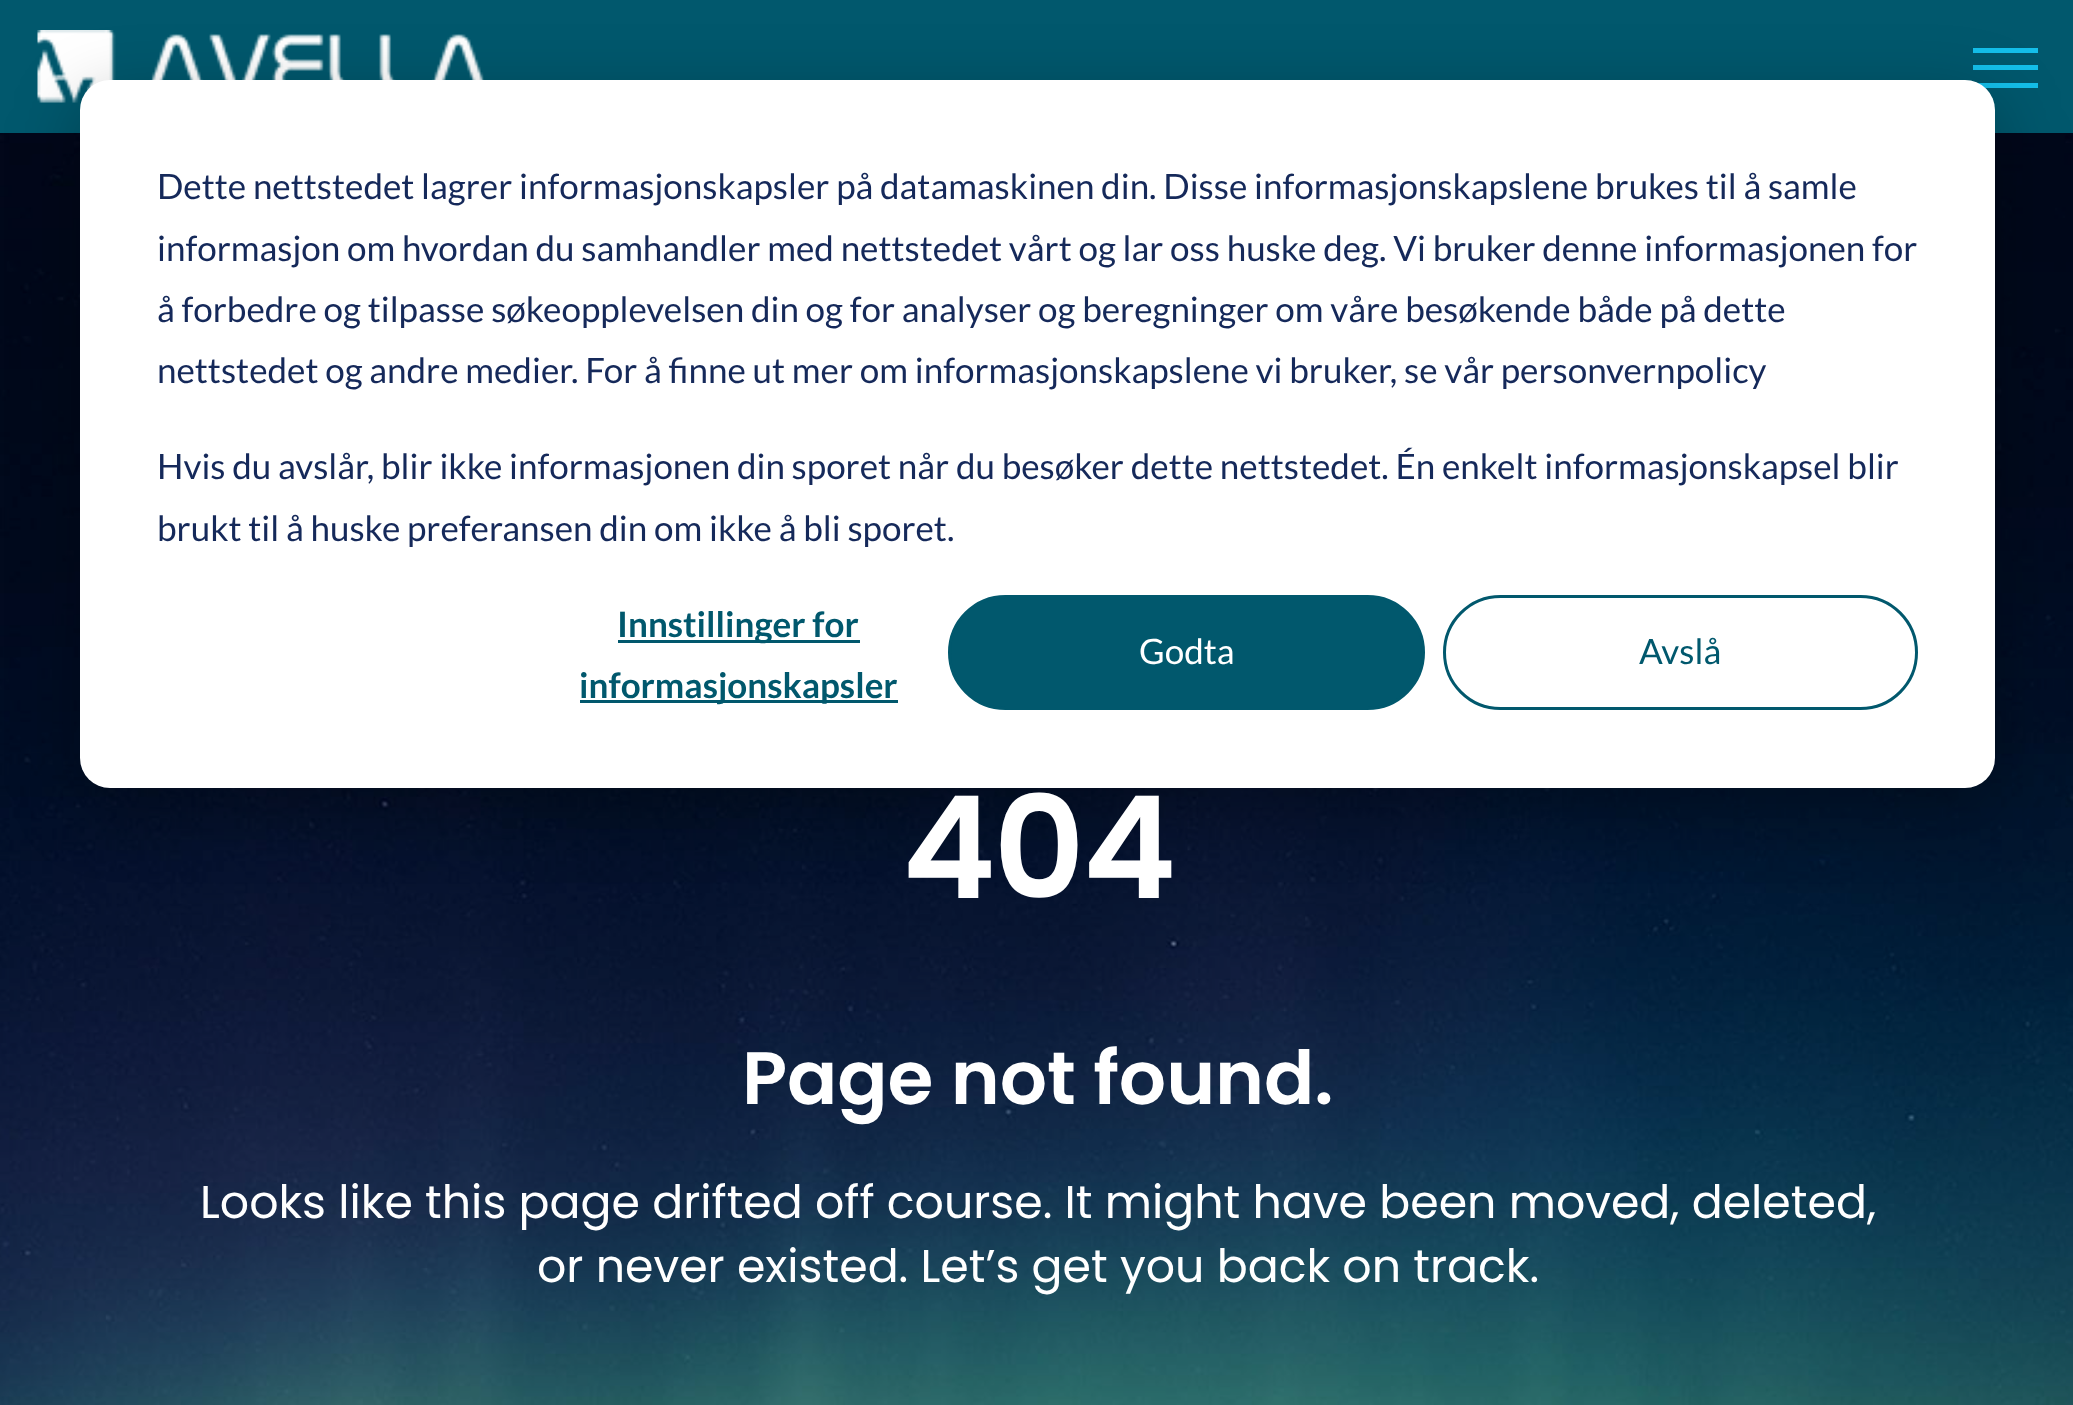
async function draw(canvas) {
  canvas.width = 2073;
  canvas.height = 1405;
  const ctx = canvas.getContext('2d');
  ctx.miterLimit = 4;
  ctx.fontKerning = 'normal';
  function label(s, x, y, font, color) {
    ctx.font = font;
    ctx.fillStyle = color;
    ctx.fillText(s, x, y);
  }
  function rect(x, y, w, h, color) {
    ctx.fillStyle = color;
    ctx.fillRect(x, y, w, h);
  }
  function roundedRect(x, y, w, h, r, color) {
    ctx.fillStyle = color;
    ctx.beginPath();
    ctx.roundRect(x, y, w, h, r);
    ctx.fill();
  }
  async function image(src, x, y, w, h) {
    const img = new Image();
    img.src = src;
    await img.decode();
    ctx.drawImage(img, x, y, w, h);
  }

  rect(0, 0, 2073, 1405, '#fff');
  rect(0, 0, 2073, 133, '#01586d');
  await image('assets/img1.png', 37, 30, 448, 73);
  rect(1973, 48, 65, 5, '#14bfea');
  rect(1973, 65, 65, 5, '#14bfea');
  rect(1973, 83, 65, 5, '#14bfea');
  await image('assets/img2.png', 0, 133, 2073, 1272);
  ctx.fillStyle = '#00000047';
  ctx.filter = 'blur(35px)';
  ctx.beginPath();
  ctx.roundRect(80, 100, 1915, 708, 30);
  ctx.fill();
  ctx.filter = 'none';
  roundedRect(80, 80, 1915, 708, 30, '#fff');
  label('Dette nettstedet lagrer informasjonskapsler på datamaskinen din. Disse informasjonskapslene brukes til å samle', 157, 199, '35px Lato', '#15295a');
  label('informasjon om hvordan du samhandler med nettstedet vårt og lar oss huske deg. Vi bruker denne informasjonen for', 157, 261, '35px Lato', '#15295a');
  label('å forbedre og tilpasse søkeopplevelsen din og for analyser og beregninger om våre besøkende både på dette', 157, 322, '35px Lato', '#15295a');
  label('nettstedet og andre medier. For å finne ut mer om informasjonskapslene vi bruker, se vår personvernpolicy', 157, 383, '35px Lato', '#15295a');
  label('Hvis du avslår, blir ikke informasjonen din sporet når du besøker dette nettstedet. Én enkelt informasjonskapsel blir', 157, 479, '35px Lato', '#15295a');
  label('brukt til å huske preferansen din om ikke å bli sporet.', 157, 541, '35px Lato', '#15295a');
  rect(618, 640, 242, 3, '#01586d');
  label('Innstillinger for', 617, 637, 'bold 35px Lato', '#01586d');
  rect(580, 700, 318, 3, '#01586d');
  label('informasjonskapsler', 579, 698, 'bold 35px Lato', '#01586d');
  ctx.beginPath();
  ctx.roundRect(949.5, 596.5, 474, 112, 56);
  ctx.fill();
  ctx.strokeStyle = '#01586d';
  ctx.lineWidth = 3;
  ctx.stroke();
  label('Godta', 1139, 664, '35px Lato', '#fff');
  ctx.beginPath();
  ctx.roundRect(1444.5, 596.5, 472, 112, 56);
  ctx.stroke();
  label('Avslå', 1639, 664, '35px Lato', '#01586d');
  ctx.letterSpacing = '-2.5px';
  label('404', 902, 898, '600 142px Poppins', '#fff');
  ctx.letterSpacing = '-0.1px';
  label('Page not found.', 742, 1104, '600 74.25px Poppins', '#fff');
  ctx.letterSpacing = '0px';
  label('Looks like this page drifted off course. It might have been moved, deleted,', 200, 1218, '45.85px Poppins', '#fff');
  label('or never existed. Let’s get you back on track.', 537, 1282, '45.85px Poppins', '#fff');
}

draw(document.querySelector('canvas'));
